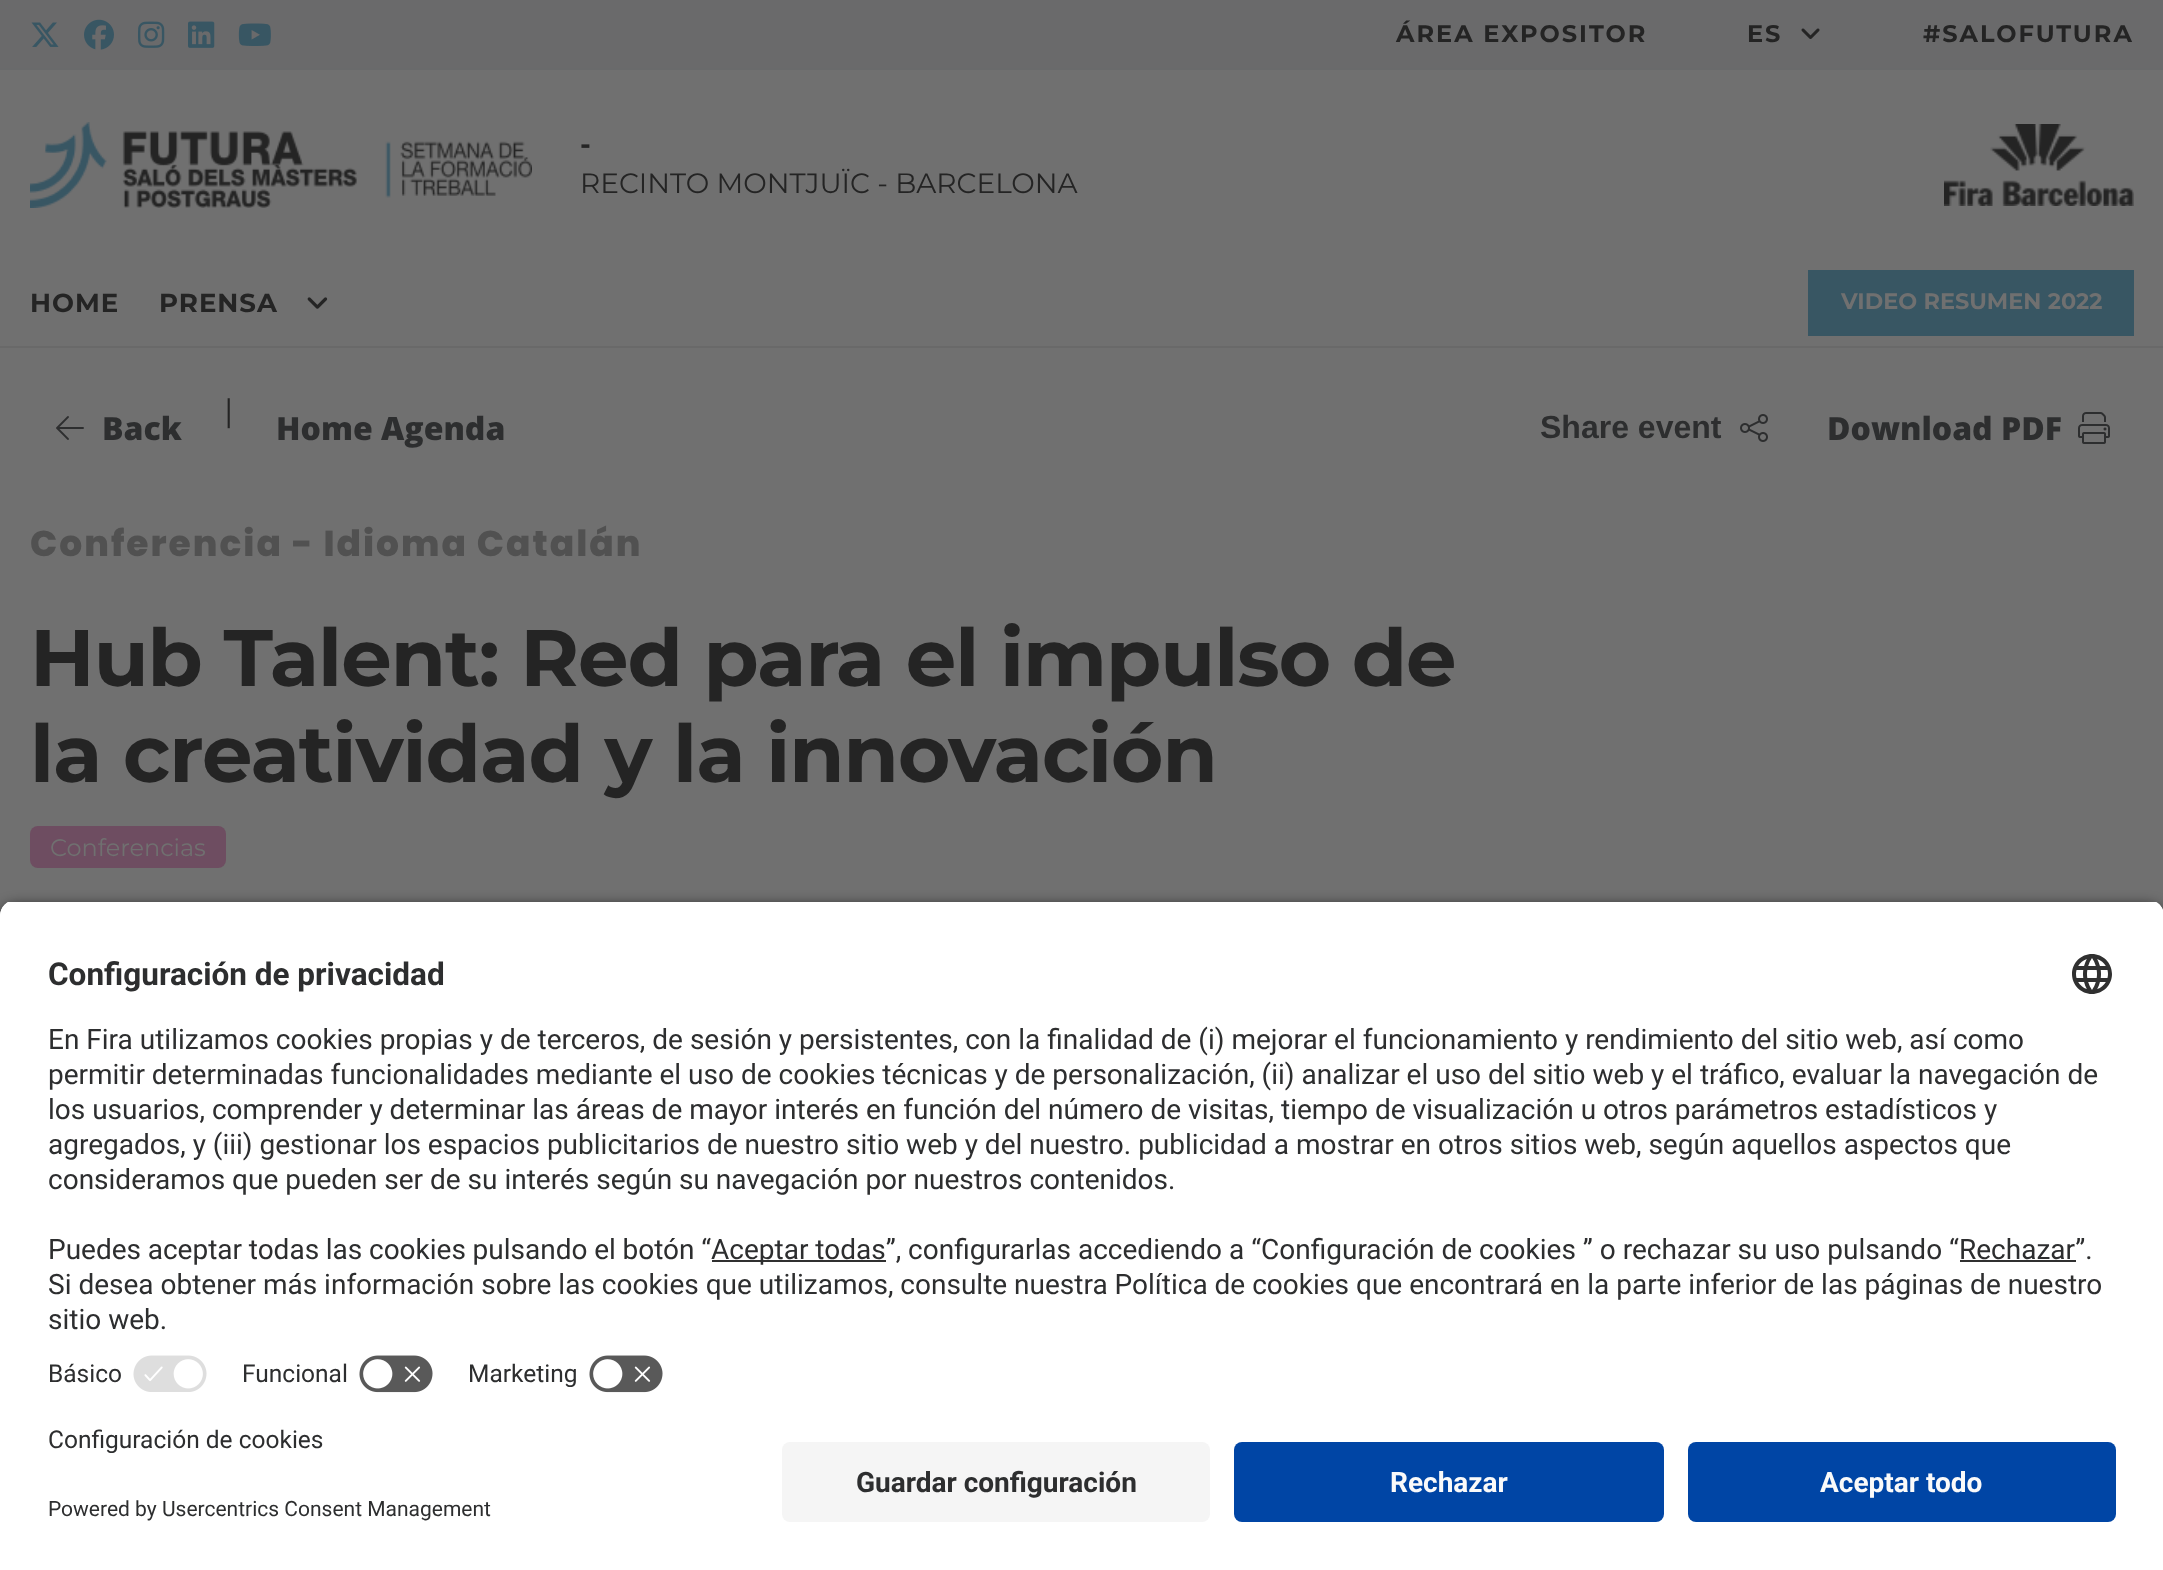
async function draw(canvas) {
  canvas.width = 2163;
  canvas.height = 1570;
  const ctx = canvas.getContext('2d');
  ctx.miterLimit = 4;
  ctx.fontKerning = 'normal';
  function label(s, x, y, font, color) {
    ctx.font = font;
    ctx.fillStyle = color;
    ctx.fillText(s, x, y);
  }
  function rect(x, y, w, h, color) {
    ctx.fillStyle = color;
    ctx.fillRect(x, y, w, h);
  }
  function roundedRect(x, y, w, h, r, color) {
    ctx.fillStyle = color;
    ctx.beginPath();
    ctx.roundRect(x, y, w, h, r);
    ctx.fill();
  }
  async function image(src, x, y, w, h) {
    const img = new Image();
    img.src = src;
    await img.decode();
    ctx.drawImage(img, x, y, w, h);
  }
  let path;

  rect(0, 0, 2163, 1570, '#707070');
  rect(0, 68, 2163, 2, '#696a6b');
  rect(0, 0, 2163, 68, '#6a6a6b');
  await image('assets/img1.png', 31, 22, 28, 25);
  await image('assets/img2.png', 84, 19, 30, 31);
  await image('assets/img3.png', 138, 21, 27, 27);
  await image('assets/img4.png', 188, 21, 27, 27);
  await image('assets/img5.png', 238, 23, 33, 23);
  ctx.letterSpacing = '2px';
  label('ÁREA EXPOSITOR', 1396, 42, 'bold 24px Montserrat', '#242424');
  label('ES', 1747, 42, 'bold 24px Montserrat', '#242424');
  await image('assets/img6.png', 1801, 28, 19, 11);
  label('#SALOFUTURA', 1923, 42, 'bold 24px Montserrat', '#242424');
  await image('assets/img7.png', 30, 122, 502, 86);
  ctx.letterSpacing = '0px';
  label('-', 580, 154, 'bold 28px Montserrat', '#242424');
  label('RECINTO MONTJUÏC - BARCELONA', 580, 193, '28px Montserrat', '#242424');
  await image('assets/img8.png', 1944, 124, 190, 82);
  rect(0, 346, 2163, 2, '#696969');
  ctx.letterSpacing = '1px';
  label('HOME', 30, 312, 'bold 26px Montserrat', '#242424');
  label('PRENSA', 159, 312, 'bold 26px Montserrat', '#242424');
  await image('assets/img9.png', 307, 297, 21, 12);
  rect(1808, 270, 326, 66, '#385663');
  ctx.letterSpacing = '0px';
  label('VIDEO RESUMEN 2022', 1841, 309, 'bold 22.4px Montserrat', '#707070');
  await image('assets/img10.png', 56, 416, 28, 24);
  label('Back', 102, 440, '800 32px Open Sans', '#2d2e2f');
  label('|', 224, 422, '32px Montserrat', '#242424');
  label('Home Agenda', 276, 440, '800 32px Open Sans', '#2d2e2f');
  label('Share event', 1540, 438, 'bold 32px Liberation Sans', '#2d2e2f');
  await image('assets/img11.png', 1740, 414, 28, 28);
  label('Download PDF', 1827, 440, '800 32px Open Sans', '#2d2e2f');
  await image('assets/img12.png', 2078, 412, 32, 32);
  ctx.letterSpacing = '2px';
  label('Conferencia - Idioma Catalán', 30, 556, '800 36px Poppins', '#515151');
  ctx.letterSpacing = '-1px';
  label('Hub Talent: Red para el impulso de', 30, 686, 'bold 80px Montserrat', '#242424');
  label('la creatividad y la innovación', 30, 782, 'bold 80px Montserrat', '#242424');
  roundedRect(30, 826, 196, 42, 8, '#6e4d61');
  ctx.letterSpacing = '0px';
  label('Conferencias', 50, 856, '24px Montserrat', '#707070');
  ctx.fillStyle = '#000000cc';
  ctx.filter = 'blur(7px)';
  ctx.beginPath();
  ctx.roundRect(0, 906, 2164, 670, 16);
  ctx.fill();
  ctx.filter = 'none';
  ctx.save();
  path = new Path2D('M16 900H2148C2157 900 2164 907 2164 916V1426H0V916C0 907 7 900 16 900Z');
  ctx.clip(path);
  rect(0, 902, 2163, 524, '#fff');
  rect(0, 902, 2163, 444, '#fff');
  ctx.restore();
  label('Configuración de privacidad', 48, 985, 'bold 31.5px Roboto', '#2d2e2f');
  await image('assets/img13.png', 2072, 954, 40, 40);
  label('En Fira utilizamos cookies propias y de terceros, de sesión y persistentes, con la finalidad de (i) mejorar el funcionamiento y rendimiento del sitio web, así como', 48, 1049, '28px Roboto', '#2d2e2f');
  label('permitir determinadas funcionalidades mediante el uso de cookies técnicas y de personalización, (ii) analizar el uso del sitio web y el tráfico, evaluar la navegación de', 48, 1084, '28px Roboto', '#2d2e2f');
  label('los usuarios, comprender y determinar las áreas de mayor interés en función del número de visitas, tiempo de visualización u otros parámetros estadísticos y', 48, 1119, '28px Roboto', '#2d2e2f');
  label('agregados, y (iii) gestionar los espacios publicitarios de nuestro sitio web y del nuestro. publicidad a mostrar en otros sitios web, según aquellos aspectos que', 48, 1154, '28px Roboto', '#2d2e2f');
  label('consideramos que pueden ser de su interés según su navegación por nuestros contenidos.', 48, 1189, '28px Roboto', '#2d2e2f');
  ctx.wordSpacing = '-0.25px';
  label('Puedes aceptar todas las cookies pulsando el botón “', 48, 1259, '28px Roboto', '#2d2e2f');
  rect(712, 1260, 174, 2, '#303030');
  ctx.wordSpacing = '0px';
  label('Aceptar todas”, configurarlas accediendo a “Configuración de cookies ” o rechazar su uso pulsando “Rechazar”.', 711, 1259, '28px Roboto', '#2d2e2f');
  rect(1960, 1260, 116, 2, '#303030');
  label('Si desea obtener más información sobre las cookies que utilizamos, consulte nuestra Política de cookies que encontrará en la parte inferior de las páginas de nuestro', 48, 1294, '28px Roboto', '#2d2e2f');
  label('sitio web.', 48, 1329, '28px Roboto', '#2d2e2f');
  label('Básico', 48, 1382, '24.5px Roboto', '#2d2e2f');
  await image('assets/img14.png', 133, 1355, 74, 37);
  label('Funcional', 242, 1382, '24.5px Roboto', '#2d2e2f');
  await image('assets/img15.png', 359, 1355, 74, 38);
  label('Marketing', 468, 1382, '24.5px Roboto', '#2d2e2f');
  await image('assets/img15.png', 589, 1355, 74, 38);
  rect(0, 1426, 2163, 144, '#fff');
  label('Configuración de cookies', 48, 1448, '24.5px Roboto', '#2d2e2f');
  label('Powered by Usercentrics Consent Management', 48, 1516, '21px Roboto', '#2d2e2f');
  roundedRect(782, 1442, 428, 80, 8, '#f5f5f5');
  label('Guardar configuración', 856, 1492, 'bold 28px Roboto', '#2d2e2f');
  roundedRect(1234, 1442, 430, 80, 8, '#0045a5');
  label('Rechazar', 1390, 1492, 'bold 28px Roboto', '#fafafa');
  roundedRect(1688, 1442, 428, 80, 8, '#0045a5');
  label('Aceptar todo', 1820, 1492, 'bold 28px Roboto', '#fafafa');
}

draw(document.querySelector('canvas'));
